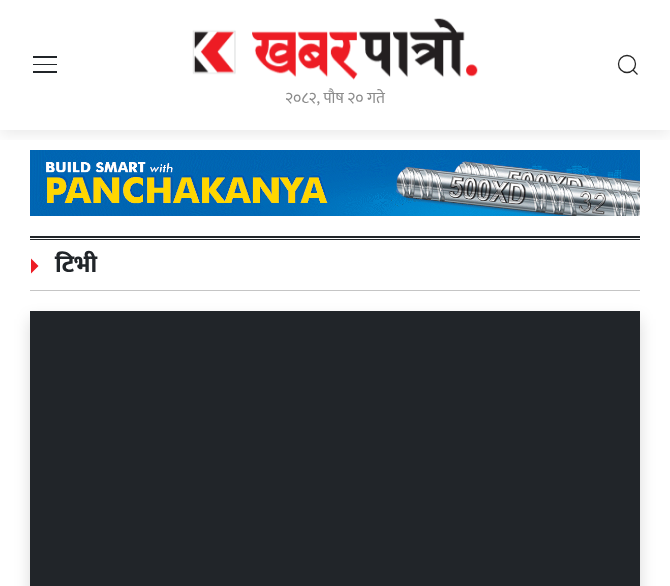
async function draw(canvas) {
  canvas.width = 670;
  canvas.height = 586;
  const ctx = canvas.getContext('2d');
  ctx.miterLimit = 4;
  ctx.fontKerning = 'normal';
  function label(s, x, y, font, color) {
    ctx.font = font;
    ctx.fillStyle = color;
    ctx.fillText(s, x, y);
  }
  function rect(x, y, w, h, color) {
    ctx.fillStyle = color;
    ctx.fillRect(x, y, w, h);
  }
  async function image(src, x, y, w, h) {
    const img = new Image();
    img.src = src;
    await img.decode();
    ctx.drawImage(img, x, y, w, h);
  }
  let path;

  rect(0, 0, 670, 586, '#fff');
  await image('assets/img2.png', 30, 150, 610, 66);
  ctx.save();
  ctx.beginPath();
  ctx.rect(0, 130, 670, 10);
  ctx.clip();
  ctx.fillStyle = '#00000014';
  ctx.filter = 'blur(7.5px)';
  ctx.beginPath();
  ctx.rect(0, 5, 670, 130);
  ctx.fill();
  ctx.filter = 'none';
  ctx.restore();
  rect(33, 56, 24, 2, '#212529');
  rect(33, 64, 24, 1, '#212529');
  rect(33, 71, 24, 2, '#212529');
  ctx.beginPath();
  ctx.arc(627, 64, 8.5, 0, 2 * Math.PI);
  ctx.strokeStyle = '#272727';
  ctx.lineWidth = 1.3;
  ctx.stroke();
  path = new Path2D('M633 70L637.5 74.5Z');
  ctx.stroke(path);
  await image('assets/img1.png', 192, 18, 286, 62);
  label('२०८२, पौष २० गते', 285, 103, '16px Mukta', '#8b8b8b');
  rect(30, 236, 610, 4, '#212529');
  rect(30, 290, 610, 1, '#c5c5c5');
  rect(30, 238, 610, 1, '#fff');
  ctx.fillStyle = '#ed1c24';
  path = new Path2D('M31 258.5L38.5 266L31 273.5Z');
  ctx.fill(path);
  label('टिभी', 55, 272, '800 24px Mukta', '#212529');
  ctx.fillStyle = '#00000026';
  ctx.filter = 'blur(8px)';
  ctx.beginPath();
  ctx.rect(30, 319, 610, 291);
  ctx.fill();
  ctx.filter = 'none';
  rect(30, 311, 610, 275, '#212529');
}

draw(document.querySelector('canvas'));
